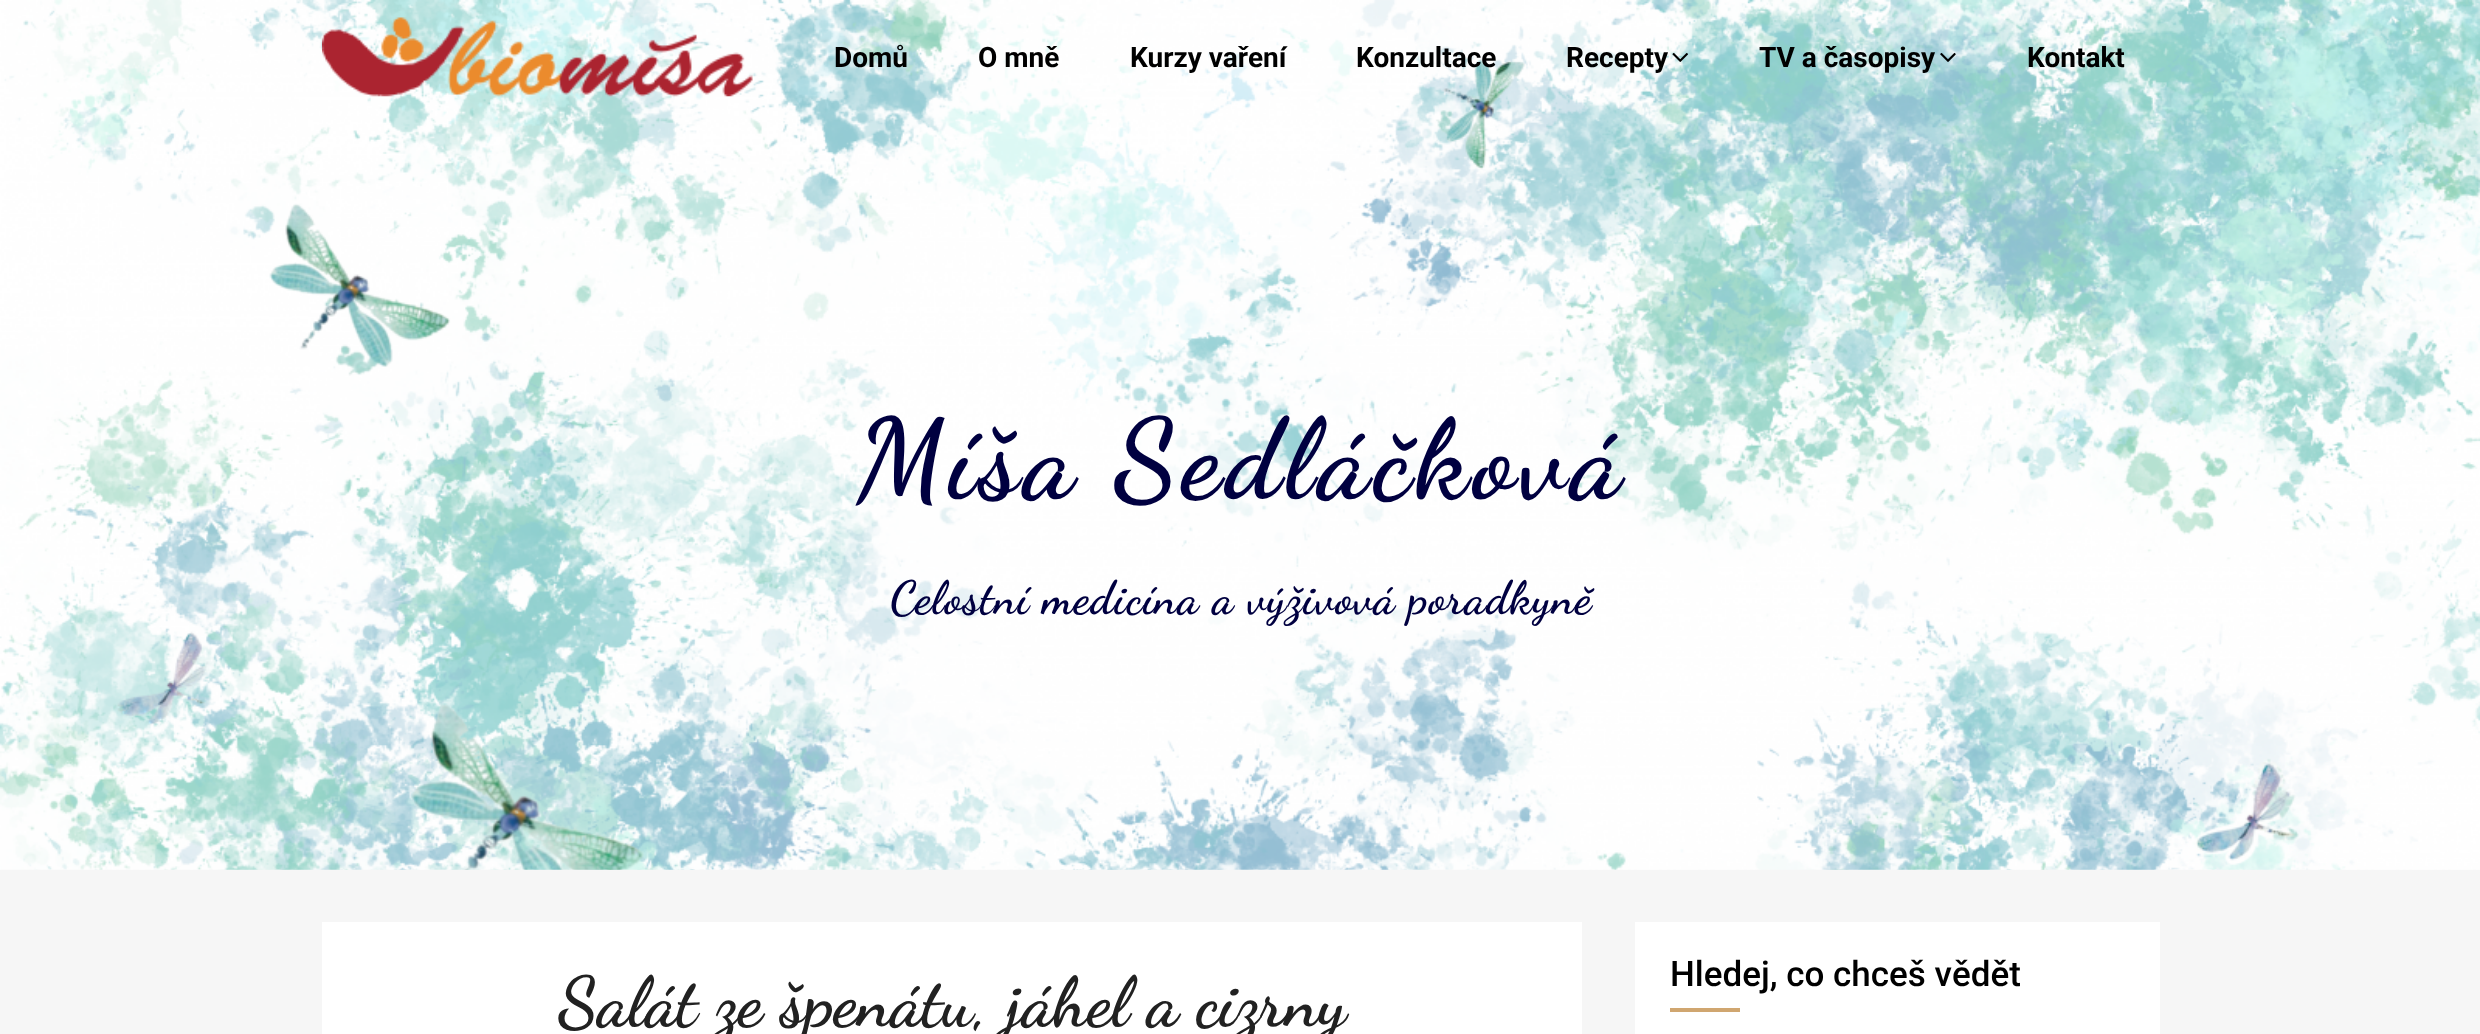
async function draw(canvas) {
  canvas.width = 2480;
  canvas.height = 1034;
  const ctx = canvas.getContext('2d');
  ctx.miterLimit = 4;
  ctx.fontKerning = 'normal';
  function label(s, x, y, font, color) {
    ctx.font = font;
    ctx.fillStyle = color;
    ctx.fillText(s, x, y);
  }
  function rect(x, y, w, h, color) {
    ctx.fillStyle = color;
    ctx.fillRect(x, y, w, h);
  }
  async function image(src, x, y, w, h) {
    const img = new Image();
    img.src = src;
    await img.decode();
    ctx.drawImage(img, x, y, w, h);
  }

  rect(0, 0, 2480, 1034, '#f6f6f6');
  await image('assets/img1.png', 0, 0, 2480, 870);
  await image('assets/img2.png', 322, 17, 431, 80);
  label('Domů', 834, 67, 'bold 28px Roboto', '#000');
  label('O mně', 978, 67, 'bold 28px Roboto', '#000');
  label('Kurzy vaření', 1130, 67, 'bold 28px Roboto', '#000');
  label('Konzultace', 1356, 67, 'bold 28px Roboto', '#000');
  label('Recepty', 1566, 67, 'bold 28px Roboto', '#000');
  await image('assets/img3.png', 1672, 52, 16, 10);
  label('TV a časopisy', 1759, 67, 'bold 28px Roboto', '#000');
  await image('assets/img4.png', 1940, 52, 16, 10);
  label('Kontakt', 2027, 67, 'bold 28px Roboto', '#000');
  ctx.letterSpacing = '5.25px';
  label('Míša Sedláčková', 856, 496, 'bold 112px Dancing Script', '#000040');
  ctx.letterSpacing = '0.9px';
  label('Celostní medicína a výživová poradkyně', 890, 613, 'bold 46.7px Dancing Script', '#000040');
  rect(322, 922, 1260, 112, '#fff');
  ctx.letterSpacing = '0px';
  label('Salát ze špenátu, jáhel a cizrny', 558, 1025, 'bold 70px Dancing Script', '#212121');
  rect(1635, 922, 525, 112, '#fff');
  label('Hledej, co chceš vědět', 1670, 986, '500 35px Roboto', '#000');
  rect(1670, 1008, 70, 4, '#d0a670');
}

draw(document.querySelector('canvas'));
